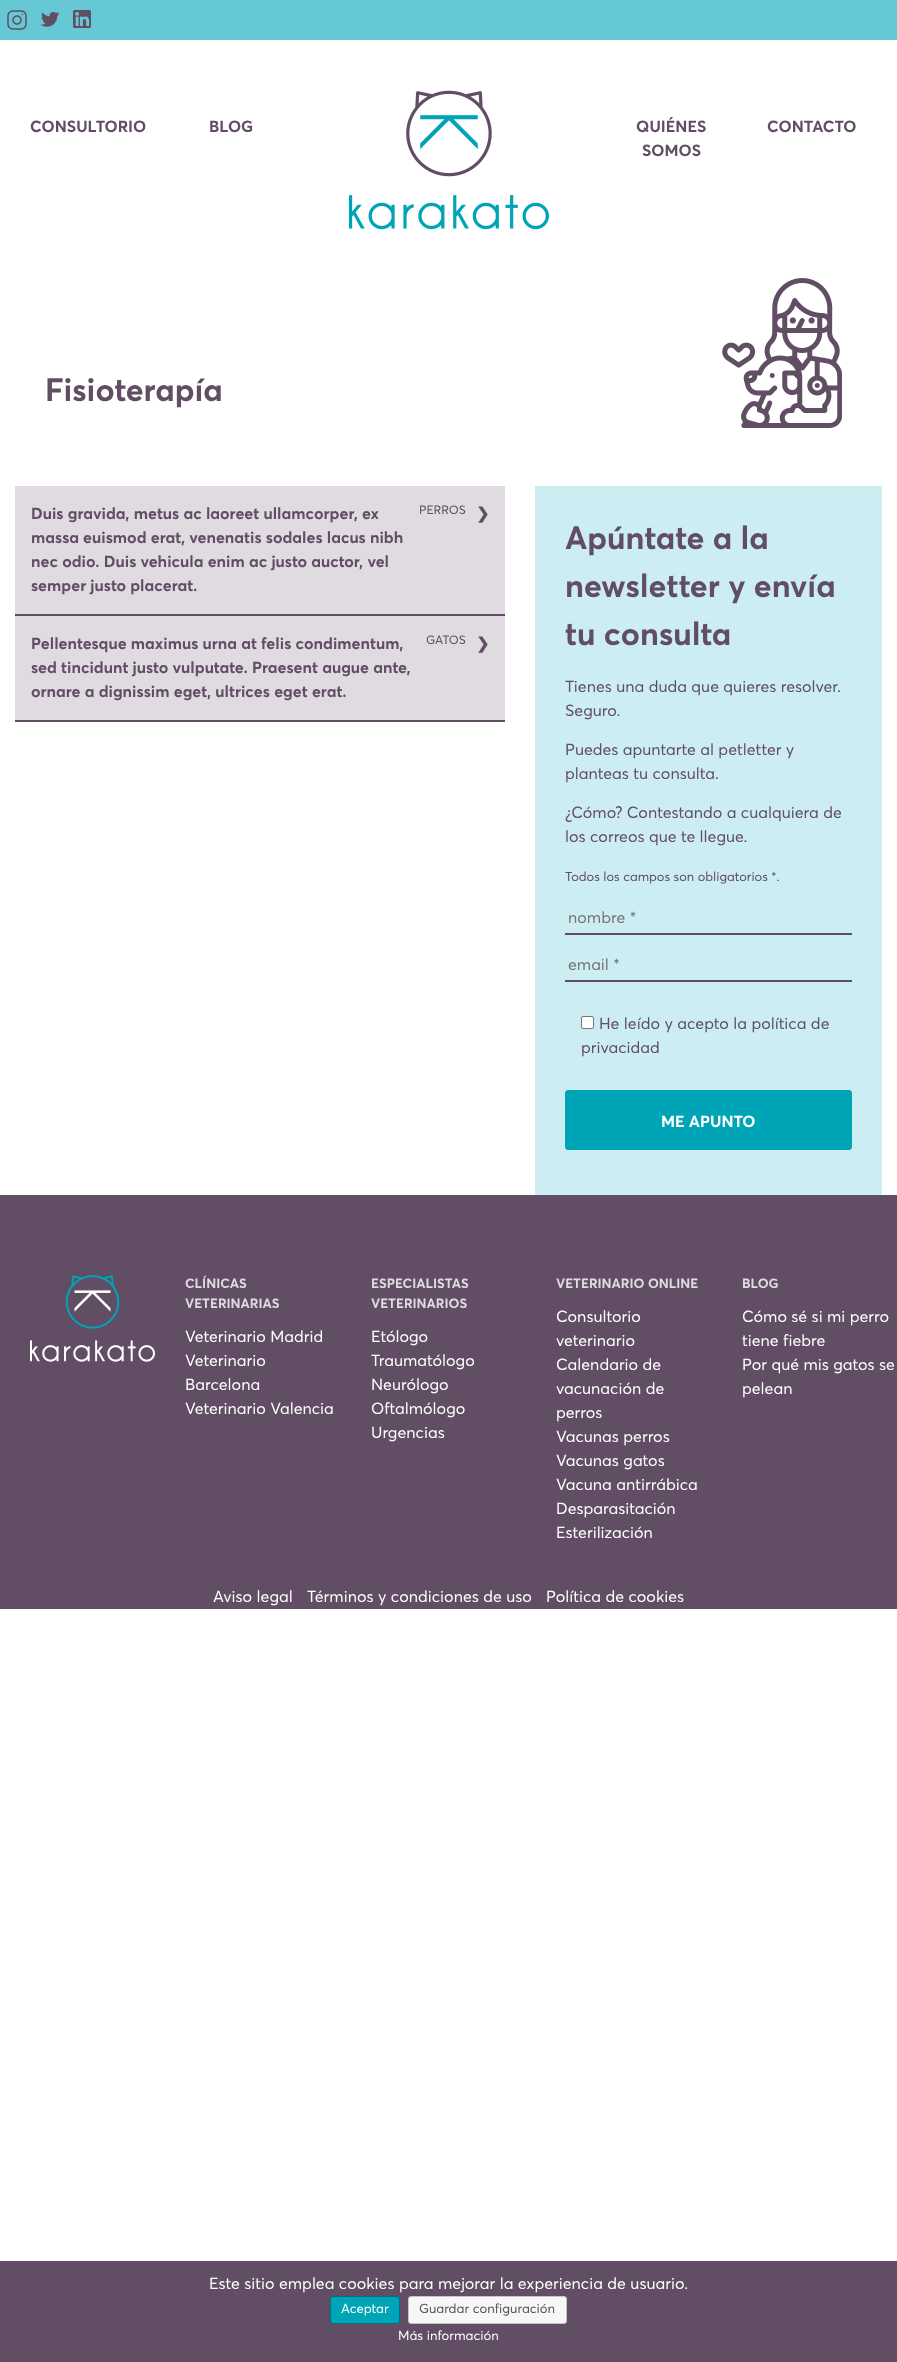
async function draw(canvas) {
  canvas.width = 897;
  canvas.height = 2362;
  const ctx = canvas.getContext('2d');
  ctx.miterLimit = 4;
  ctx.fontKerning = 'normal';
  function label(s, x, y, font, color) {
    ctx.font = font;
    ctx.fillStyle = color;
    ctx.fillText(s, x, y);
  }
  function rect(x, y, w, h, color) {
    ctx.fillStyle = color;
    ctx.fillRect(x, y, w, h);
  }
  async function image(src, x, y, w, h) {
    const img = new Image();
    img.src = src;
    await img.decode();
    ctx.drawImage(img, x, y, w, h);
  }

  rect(0, 0, 897, 2362, '#fff');
  rect(0, 0, 897, 40, '#66c8d4');
  await image('assets/img1.png', 7, 10, 20, 20);
  await image('assets/img2.png', 41, 12, 18, 15);
  await image('assets/img3.png', 73, 10, 18, 18);
  await image('assets/img4.png', 348, 90, 201, 140);
  label('CONSULTORIO', 30, 132, 'bold 16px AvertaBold', '#614d64');
  label('BLOG', 209, 132, 'bold 16px AvertaBold', '#614d64');
  label('QUIÉNES', 636, 132, 'bold 16px AvertaBold', '#614d64');
  label('SOMOS', 642, 156, 'bold 16px AvertaBold', '#614d64');
  label('CONTACTO', 767, 132, 'bold 16px AvertaBold', '#614d64');
  label('Fisioterapía', 45, 401, 'bold 32px AvertaBold', '#614d64');
  await image('assets/img5.png', 722, 278, 120, 150);
  rect(15, 486, 490, 128, '#dfdbe0');
  rect(15, 614, 490, 2, '#614d64');
  label('Duis gravida, metus ac laoreet ullamcorper, ex', 31, 519, 'bold 16px AvertaBold', '#614d64');
  label('PERROS', 419, 514, '12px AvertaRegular', '#614d64');
  label('❯', 476, 519, 'bold 16px DejaVu Sans', '#614d64');
  label('massa euismod erat, venenatis sodales lacus nibh', 31, 543, 'bold 16px AvertaBold', '#614d64');
  label('nec odio. Duis vehicula enim ac justo auctor, vel', 31, 567, 'bold 16px AvertaBold', '#614d64');
  label('semper justo placerat.', 31, 591, 'bold 16px AvertaBold', '#614d64');
  rect(15, 616, 490, 104, '#dfdbe0');
  rect(15, 720, 490, 2, '#614d64');
  label('Pellentesque maximus urna at felis condimentum,', 31, 649, 'bold 16px AvertaBold', '#614d64');
  label('GATOS', 426, 644, '12px AvertaRegular', '#614d64');
  label('❯', 476, 649, 'bold 16px DejaVu Sans', '#614d64');
  label('sed tincidunt justo vulputate. Praesent augue ante,', 31, 673, 'bold 16px AvertaBold', '#614d64');
  label('ornare a dignissim eget, ultrices eget erat.', 31, 697, 'bold 16px AvertaBold', '#614d64');
  rect(535, 486, 347, 709, '#ccedf1');
  label('Apúntate a la', 565, 549, 'bold 32px AvertaBold', '#614d64');
  label('newsletter y envía', 565, 597, 'bold 32px AvertaBold', '#614d64');
  label('tu consulta', 565, 645, 'bold 32px AvertaBold', '#614d64');
  label('Tienes una duda que quieres resolver.', 565, 692, '16px AvertaRegular', '#614d64');
  label('Seguro.', 565, 716, '16px AvertaRegular', '#614d64');
  label('Puedes apuntarte al petletter y', 565, 755, '16px AvertaRegular', '#614d64');
  label('planteas tu consulta.', 565, 779, '16px AvertaRegular', '#614d64');
  label('¿Cómo? Contestando a cualquiera de', 565, 818, '16px AvertaRegular', '#614d64');
  label('los correos que te llegue.', 565, 842, '16px AvertaRegular', '#614d64');
  label('Todos los campos son obligatorios *.', 565, 881, '12.75px AvertaRegular', '#614d64');
  rect(565, 933, 287, 2, '#614d64');
  label('nombre *', 568, 923, '16px AvertaRegular', '#757575');
  rect(565, 980, 287, 2, '#614d64');
  label('email *', 568, 970, '16px AvertaRegular', '#757575');
  ctx.fillStyle = '#fff';
  ctx.beginPath();
  ctx.roundRect(581.5, 1016.5, 12, 12, 1.5);
  ctx.fill();
  ctx.strokeStyle = '#767676';
  ctx.stroke();
  label('He leído y acepto la política de', 599, 1029, '16px AvertaRegular', '#614d64');
  label('privacidad', 581, 1053, '16px AvertaRegular', '#614d64');
  ctx.fillStyle = '#00a4b7';
  ctx.beginPath();
  ctx.roundRect(565.5, 1090.5, 286, 59, 2.5);
  ctx.fill();
  ctx.strokeStyle = '#00a4b7';
  ctx.stroke();
  label('ME APUNTO', 661, 1127, 'bold 16px AvertaBold', '#fff');
  rect(0, 1195, 897, 414, '#614d64');
  await image('assets/img6.png', 30, 1275, 125, 87);
  label('CLÍNICAS', 185, 1288, 'bold 13.25px AvertaBold', '#dfdbe0');
  label('VETERINARIAS', 185, 1308, 'bold 13.25px AvertaBold', '#dfdbe0');
  label('Veterinario Madrid', 185, 1342, '16px AvertaRegular', '#fff');
  label('Veterinario', 185, 1366, '16px AvertaRegular', '#fff');
  label('Barcelona', 185, 1390, '16px AvertaRegular', '#fff');
  label('Veterinario Valencia', 185, 1414, '16px AvertaRegular', '#fff');
  label('ESPECIALISTAS', 371, 1288, 'bold 13.25px AvertaBold', '#dfdbe0');
  label('VETERINARIOS', 371, 1308, 'bold 13.25px AvertaBold', '#dfdbe0');
  label('Etólogo', 371, 1342, '16px AvertaRegular', '#fff');
  label('Traumatólogo', 371, 1366, '16px AvertaRegular', '#fff');
  label('Neurólogo', 371, 1390, '16px AvertaRegular', '#fff');
  label('Oftalmólogo', 371, 1414, '16px AvertaRegular', '#fff');
  label('Urgencias', 371, 1438, '16px AvertaRegular', '#fff');
  label('VETERINARIO ONLINE', 556, 1288, 'bold 13.25px AvertaBold', '#dfdbe0');
  label('Consultorio', 556, 1322, '16px AvertaRegular', '#fff');
  label('veterinario', 556, 1346, '16px AvertaRegular', '#fff');
  label('Calendario de', 556, 1370, '16px AvertaRegular', '#fff');
  label('vacunación de', 556, 1394, '16px AvertaRegular', '#fff');
  label('perros', 556, 1418, '16px AvertaRegular', '#fff');
  label('Vacunas perros', 556, 1442, '16px AvertaRegular', '#fff');
  label('Vacunas gatos', 556, 1466, '16px AvertaRegular', '#fff');
  label('Vacuna antirrábica', 556, 1490, '16px AvertaRegular', '#fff');
  label('Desparasitación', 556, 1514, '16px AvertaRegular', '#fff');
  label('Esterilización', 556, 1538, '16px AvertaRegular', '#fff');
  label('BLOG', 742, 1288, 'bold 13.25px AvertaBold', '#dfdbe0');
  label('Cómo sé si mi perro', 742, 1322, '16px AvertaRegular', '#fff');
  label('tiene fiebre', 742, 1346, '16px AvertaRegular', '#fff');
  label('Por qué mis gatos se', 742, 1370, '16px AvertaRegular', '#fff');
  label('pelean', 742, 1394, '16px AvertaRegular', '#fff');
  label('Aviso legal', 213, 1602, '16px AvertaRegular', '#fff');
  label('Términos y condiciones de uso', 307, 1602, '16px AvertaRegular', '#fff');
  label('Política de cookies', 546, 1602, '16px AvertaRegular', '#fff');
  rect(0, 2261, 897, 101, '#614d64');
  label('Este sitio emplea cookies para mejorar la experiencia de usuario.', 209, 2289, '16px AvertaRegular', '#fff');
  ctx.fillStyle = '#00a4b7';
  ctx.beginPath();
  ctx.roundRect(330.5, 2296.5, 69, 27, 2.5);
  ctx.fill();
  ctx.strokeStyle = '#007285';
  ctx.stroke();
  label('Aceptar', 341, 2313, '13px AvertaRegular', '#fff');
  ctx.fillStyle = '#f7f7f7';
  ctx.beginPath();
  ctx.roundRect(408.5, 2296.5, 158, 27, 2.5);
  ctx.fill();
  ctx.strokeStyle = '#c5c5c5';
  ctx.stroke();
  label('Guardar configuración', 419, 2313, '13px AvertaRegular', '#555');
  label('Más información', 398, 2340, '13px AvertaRegular', '#fff');
}

draw(document.querySelector('canvas'));
